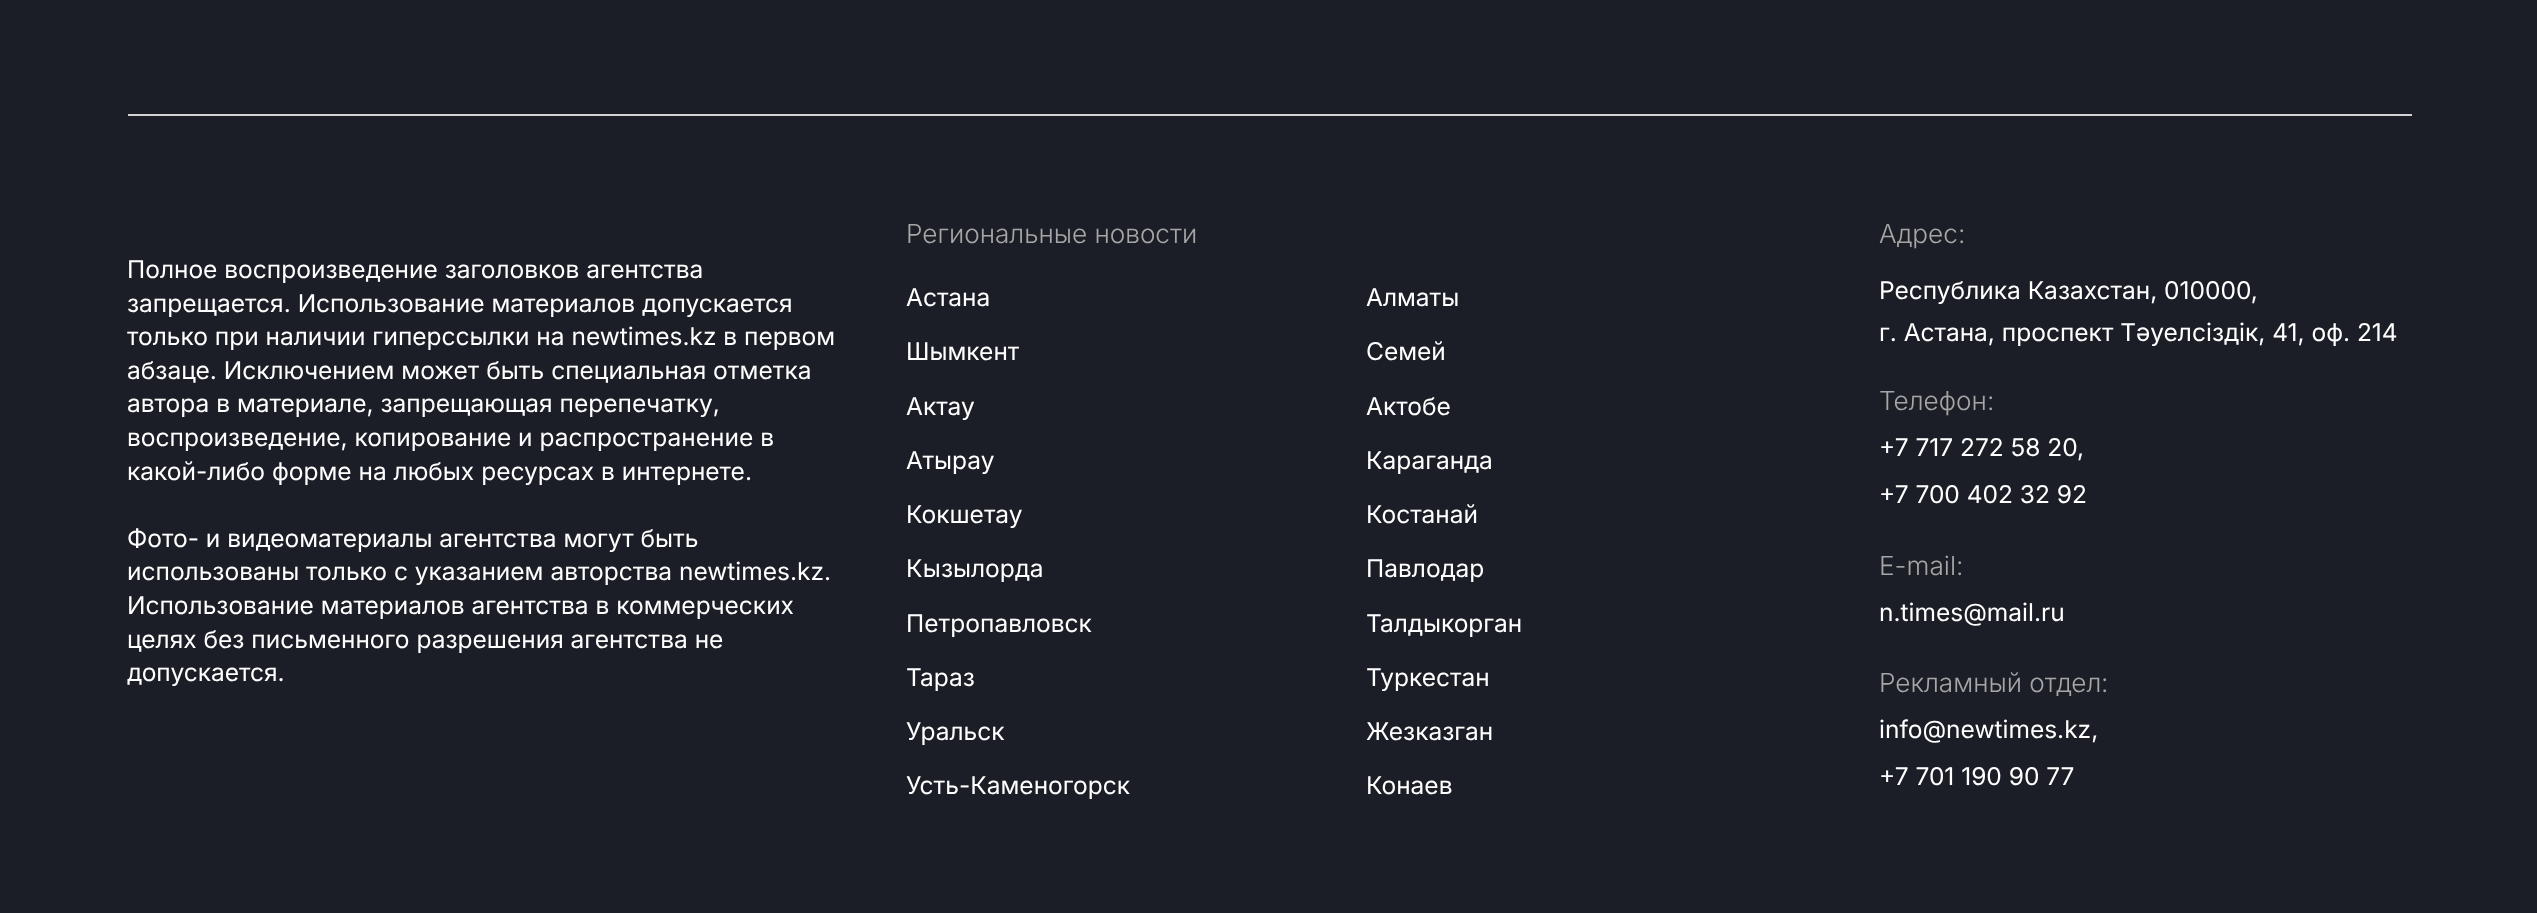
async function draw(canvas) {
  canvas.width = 2537;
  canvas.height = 913;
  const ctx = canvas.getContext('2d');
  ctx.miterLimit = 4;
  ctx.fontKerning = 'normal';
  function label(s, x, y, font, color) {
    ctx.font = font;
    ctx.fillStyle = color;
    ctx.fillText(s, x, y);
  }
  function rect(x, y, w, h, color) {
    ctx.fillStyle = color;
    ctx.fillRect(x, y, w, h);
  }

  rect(0, 0, 2537, 913, '#1b1e26');
  rect(128, 114, 2284, 2, '#d2d2d2');
  label('Полное воспроизведение заголовков агентства', 127, 278, '24.5px Inter', '#fff');
  label('запрещается. Использование материалов допускается', 127, 312, '24.5px Inter', '#fff');
  label('только при наличии гиперссылки на newtimes.kz в первом', 127, 345, '24.5px Inter', '#fff');
  label('абзаце. Исключением может быть специальная отметка', 127, 379, '24.5px Inter', '#fff');
  label('автора в материале, запрещающая перепечатку,', 127, 412, '24.5px Inter', '#fff');
  label('воспроизведение, копирование и распространение в', 127, 446, '24.5px Inter', '#fff');
  label('какой-либо форме на любых ресурсах в интернете.', 127, 480, '24.5px Inter', '#fff');
  label('Фото- и видеоматериалы агентства могут быть', 127, 547, '24.5px Inter', '#fff');
  label('использованы только с указанием авторства newtimes.kz.', 127, 580, '24.5px Inter', '#fff');
  label('Использование материалов агентства в коммерческих', 127, 614, '24.5px Inter', '#fff');
  label('целях без письменного разрешения агентства не', 127, 648, '24.5px Inter', '#fff');
  label('допускается.', 127, 681, '24.5px Inter', '#fff');
  label('Региональные новости', 906, 243, '300 26.25px Inter', '#a6a6a6');
  label('Астана', 906, 306, '24.5px Inter', '#fff');
  label('Алматы', 1366, 306, '24.5px Inter', '#fff');
  label('Шымкент', 906, 360, '24.5px Inter', '#fff');
  label('Семей', 1366, 360, '24.5px Inter', '#fff');
  label('Актау', 906, 415, '24.5px Inter', '#fff');
  label('Актобе', 1366, 415, '24.5px Inter', '#fff');
  label('Атырау', 906, 469, '24.5px Inter', '#fff');
  label('Караганда', 1366, 469, '24.5px Inter', '#fff');
  label('Кокшетау', 906, 523, '24.5px Inter', '#fff');
  label('Костанай', 1366, 523, '24.5px Inter', '#fff');
  label('Кызылорда', 906, 577, '24.5px Inter', '#fff');
  label('Павлодар', 1366, 577, '24.5px Inter', '#fff');
  label('Петропавловск', 906, 632, '24.5px Inter', '#fff');
  label('Талдыкорган', 1366, 632, '24.5px Inter', '#fff');
  label('Тараз', 906, 686, '24.5px Inter', '#fff');
  label('Туркестан', 1366, 686, '24.5px Inter', '#fff');
  label('Уральск', 906, 740, '24.5px Inter', '#fff');
  label('Жезказган', 1366, 740, '24.5px Inter', '#fff');
  label('Усть-Каменогорск', 906, 794, '24.5px Inter', '#fff');
  label('Конаев', 1366, 794, '24.5px Inter', '#fff');
  label('Адрес', 1879, 243, '300 26.25px Inter', '#a6a6a6');
  label(':', 1958, 243, '300 26.25px "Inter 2"', '#a6a6a6');
  label('Республика Казахстан, 010000,', 1879, 299, '24.5px Inter', '#fff');
  label('г. Астана, проспект Тәуелсіздік, 41, оф. 214', 1879, 341, '24.5px Inter', '#fff');
  label('Телефон', 1879, 410, '300 26.25px Inter', '#a6a6a6');
  label(':', 1987, 410, '300 26.25px "Inter 2"', '#a6a6a6');
  label('+7 717 272 58 20', 1879, 456, '24.5px Inter', '#fff');
  label(',', 2077, 456, '24.5px Inter', '#fff');
  label('+7 700 402 32 92', 1879, 503, '24.5px Inter', '#fff');
  label('E-mail:', 1879, 575, '300 26.25px "Inter 2"', '#a6a6a6');
  label('n.times@mail.ru', 1879, 621, '24.5px Inter', '#fff');
  label('Рекламный отдел', 1879, 692, '300 26.25px Inter', '#a6a6a6');
  label(':', 2101, 692, '300 26.25px "Inter 2"', '#a6a6a6');
  label('info@newtimes.kz,', 1879, 738, '24.5px Inter', '#fff');
  label('+7 701 190 90 77', 1879, 785, '24.5px Inter', '#fff');
}

draw(document.querySelector('canvas'));
